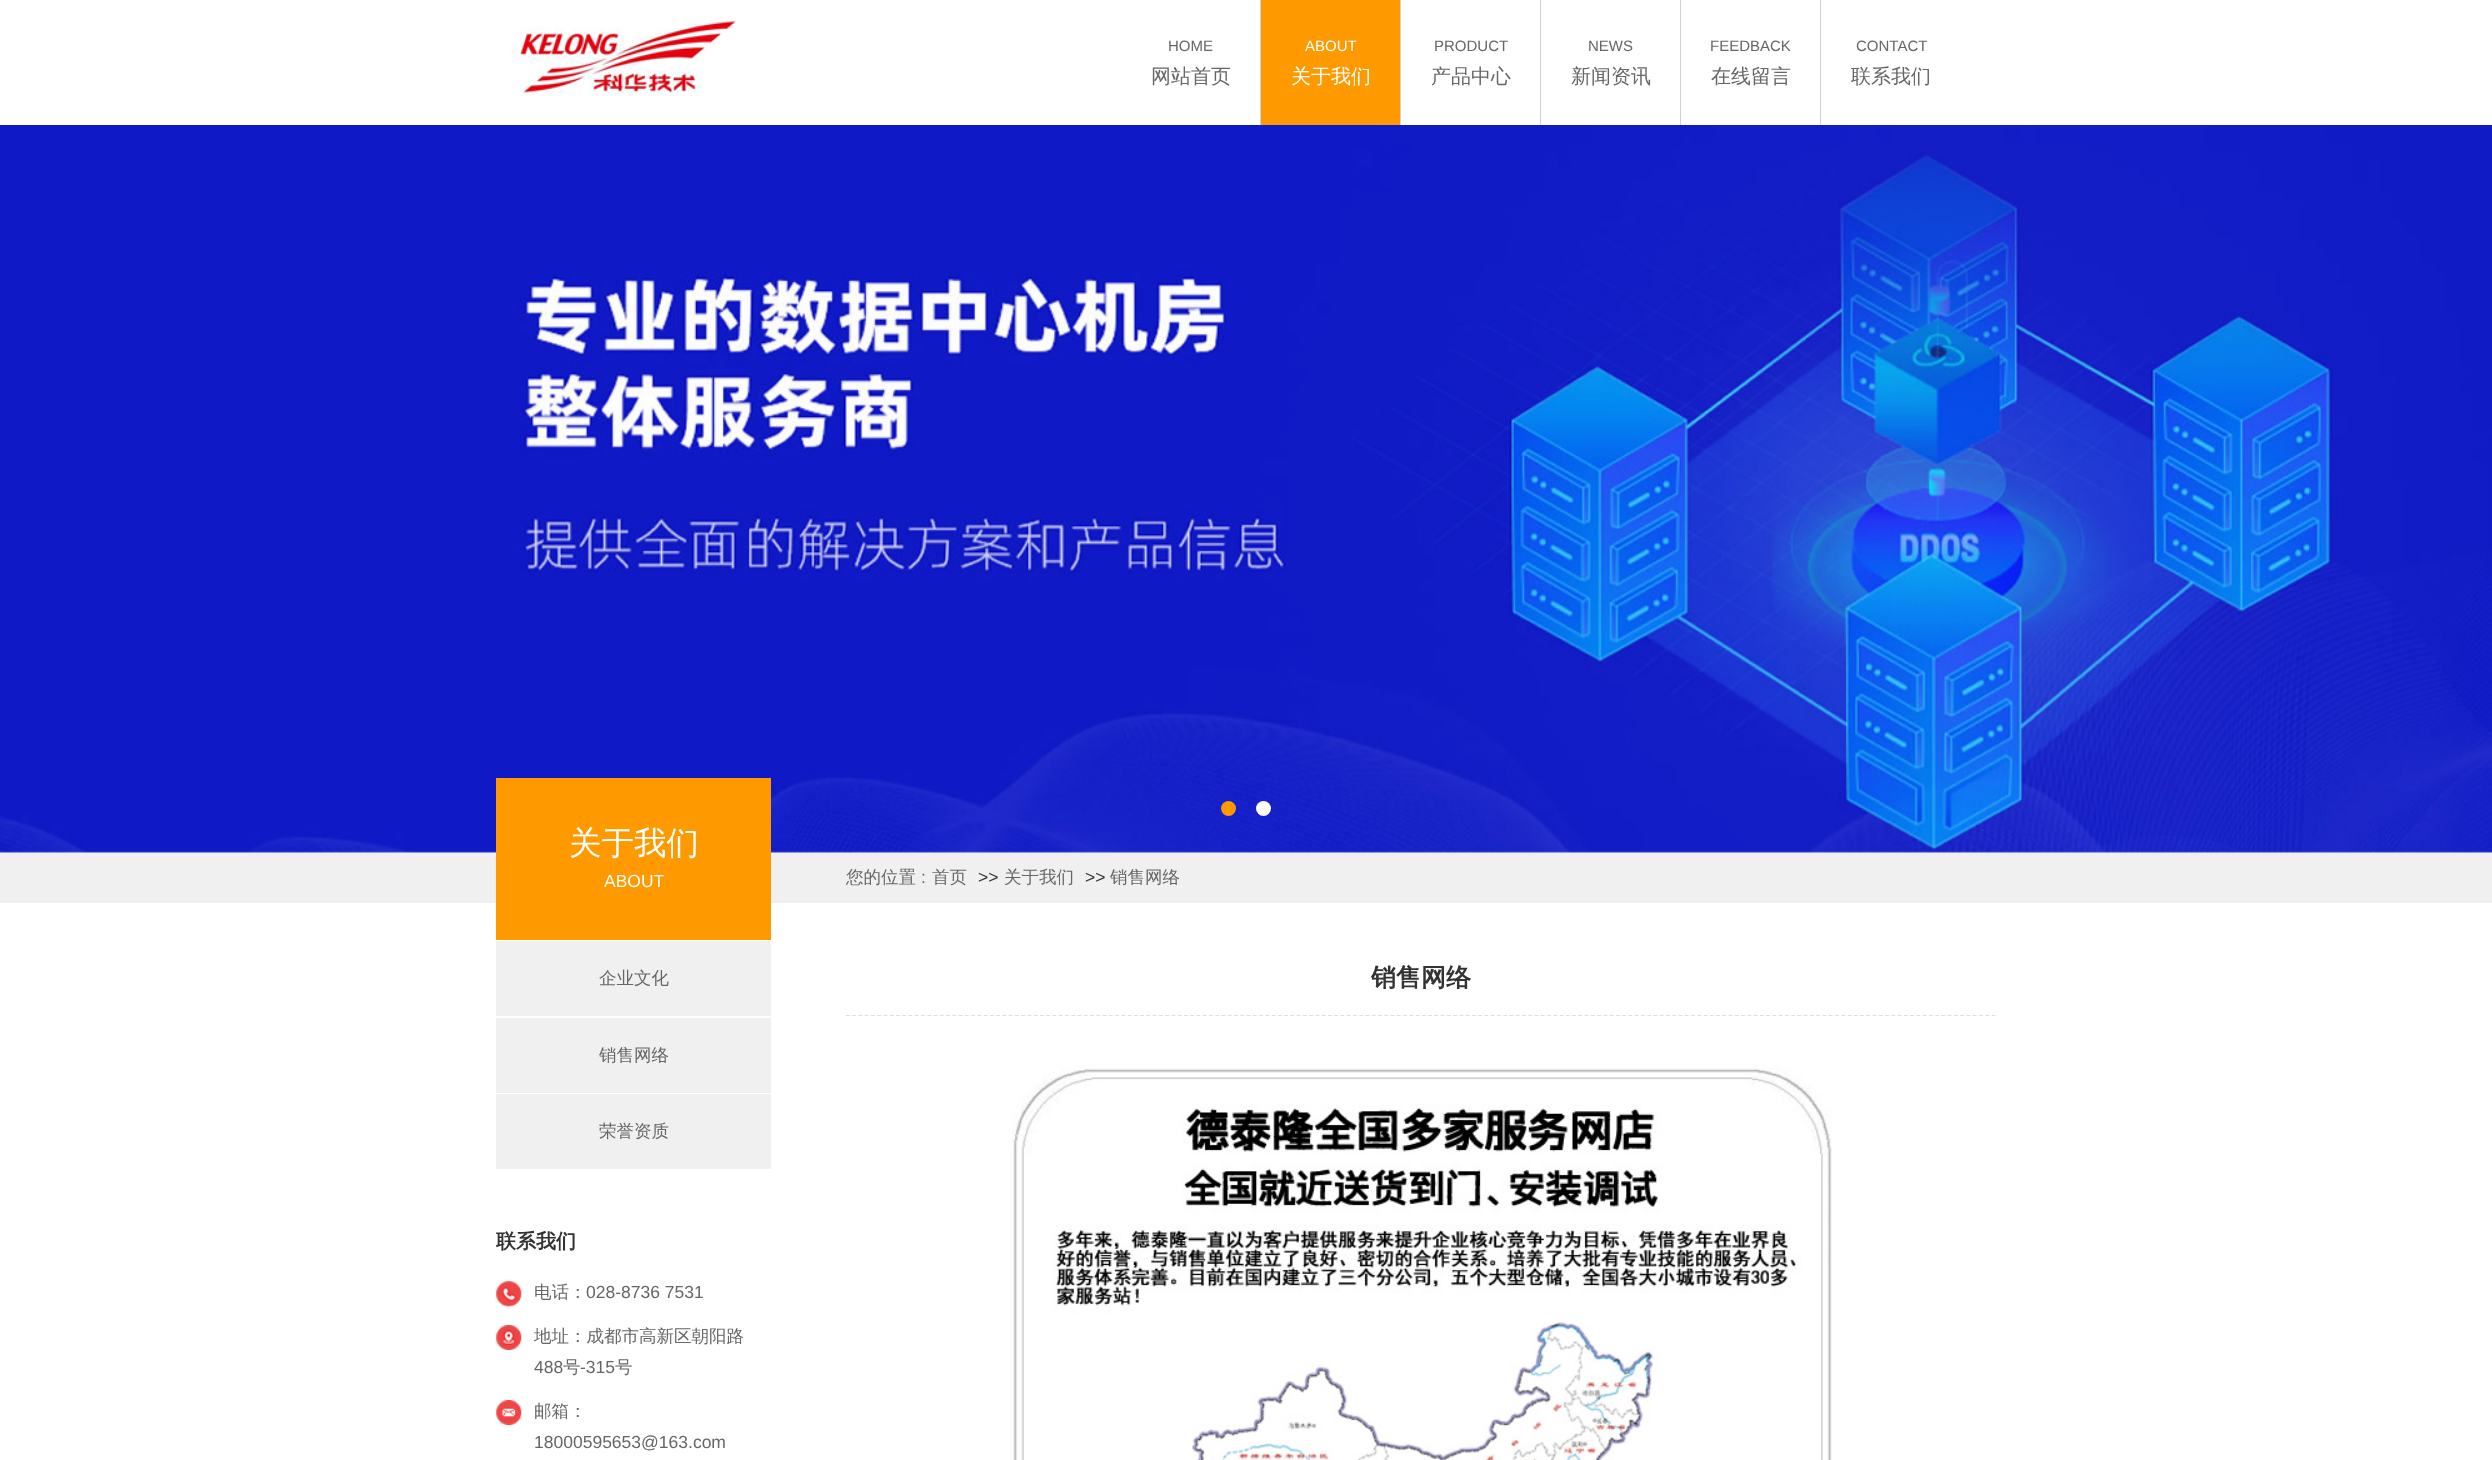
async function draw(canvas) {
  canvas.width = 2492;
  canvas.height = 1460;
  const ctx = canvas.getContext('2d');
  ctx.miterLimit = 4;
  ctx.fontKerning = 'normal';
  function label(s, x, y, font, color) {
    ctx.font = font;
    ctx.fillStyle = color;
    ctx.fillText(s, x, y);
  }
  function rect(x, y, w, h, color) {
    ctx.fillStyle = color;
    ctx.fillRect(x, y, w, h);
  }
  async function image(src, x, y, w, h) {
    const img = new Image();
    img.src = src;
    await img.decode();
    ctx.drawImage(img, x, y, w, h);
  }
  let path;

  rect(0, 0, 2492, 1460, '#fff');
  await image('assets/img1.png', 519, 19, 217, 77);
  rect(1260, 0, 1, 125, '#d2d2d2');
  label('HOME', 1168, 51, '15px Liberation Sans', '#666');
  label('网站首页', 1151, 83, '500 20px WenQuanYi Zen Hei', '#666');
  rect(1261, 0, 139, 125, '#fe9900');
  rect(1400, 0, 1, 125, '#d2d2d2');
  label('ABOUT', 1305, 51, '15px Liberation Sans', '#fff');
  label('关于我们', 1291, 83, '500 20px WenQuanYi Zen Hei', '#fff');
  rect(1540, 0, 1, 125, '#d2d2d2');
  label('PRODUCT', 1434, 51, '15px Liberation Sans', '#666');
  label('产品中心', 1431, 83, '500 20px WenQuanYi Zen Hei', '#666');
  rect(1680, 0, 1, 125, '#d2d2d2');
  label('NEWS', 1588, 51, '15px Liberation Sans', '#666');
  label('新闻资讯', 1571, 83, '500 20px WenQuanYi Zen Hei', '#666');
  rect(1820, 0, 1, 125, '#d2d2d2');
  label('FEEDBACK', 1710, 51, '15px Liberation Sans', '#666');
  label('在线留言', 1711, 83, '500 20px WenQuanYi Zen Hei', '#666');
  label('CONTACT', 1856, 51, '15px Liberation Sans', '#666');
  label('联系我们', 1851, 83, '500 20px WenQuanYi Zen Hei', '#666');
  await image('assets/img2.png', 0, 125, 2492, 728);
  ctx.fillStyle = '#fe9900';
  ctx.beginPath();
  ctx.arc(1228.5, 808.5, 7.5, 0, 2 * Math.PI);
  ctx.fill();
  ctx.fillStyle = '#fff';
  ctx.beginPath();
  ctx.arc(1263.5, 808.5, 7.5, 0, 2 * Math.PI);
  ctx.fill();
  rect(0, 853, 2492, 50, '#f0f0f0');
  rect(496, 778, 275, 162, '#fe9900');
  label('关于我们', 569, 854, '500 32.5px WenQuanYi Zen Hei', '#fff');
  label('ABOUT', 604, 887, '17.5px Liberation Sans', '#fff');
  rect(496, 941, 275, 75, '#f0f0f0');
  label('企业文化', 599, 984, '500 17.5px WenQuanYi Zen Hei', '#666');
  rect(496, 1018, 275, 75, '#f0f0f0');
  label('销售网络', 599, 1061, '500 17.5px WenQuanYi Zen Hei', '#666');
  rect(496, 1094, 275, 75, '#f0f0f0');
  label('荣誉资质', 599, 1137, '500 17.5px WenQuanYi Zen Hei', '#666');
  label('联系我们', 496, 1248, 'bold 20px WenQuanYi Zen Hei', '#333');
  await image('assets/img3.png', 496, 1281, 26, 26);
  label('电话：', 534, 1298, '500 17.5px WenQuanYi Zen Hei', '#666');
  label('028-8736 7531', 586, 1298, '17.5px Liberation Sans', '#666');
  await image('assets/img4.png', 496, 1325, 26, 25);
  label('地址：成都市高新区朝阳路', 534, 1342, '500 17.5px WenQuanYi Zen Hei', '#666');
  label('488', 534, 1373, '17.5px Liberation Sans', '#666');
  label('号', 563, 1373, '500 17.5px WenQuanYi Zen Hei', '#666');
  label('-315', 580, 1373, '17.5px Liberation Sans', '#666');
  label('号', 615, 1373, '500 17.5px WenQuanYi Zen Hei', '#666');
  await image('assets/img5.png', 496, 1400, 26, 25);
  label('邮箱：', 534, 1417, '500 17.5px WenQuanYi Zen Hei', '#666');
  label('18000595653@163.com', 534, 1448, '17.5px Liberation Sans', '#666');
  path = new Path2D('M846 1015.5H1996');
  ctx.strokeStyle = '#ddd';
  ctx.lineWidth = 1.2;
  ctx.setLineDash([3.75, 2.51]);
  ctx.stroke(path);
  label('销售网络', 1371, 986, 'bold 25px WenQuanYi Zen Hei', '#333');
  await image('assets/img6.png', 1012, 1065, 820, 395);
  label('您的位置', 846, 883, '500 17.5px WenQuanYi Zen Hei', '#666');
  label(':', 921, 883, '17.5px Liberation Sans', '#666');
  label('首页', 932, 883, '500 17.5px WenQuanYi Zen Hei', '#666');
  label('>>', 978, 883, '17.5px Liberation Sans', '#333');
  label('关于我们', 1004, 883, '500 17.5px WenQuanYi Zen Hei', '#666');
  label('>>', 1085, 883, '17.5px Liberation Sans', '#333');
  label('销售网络', 1110, 883, '500 17.5px WenQuanYi Zen Hei', '#666');
}

draw(document.querySelector('canvas'));
